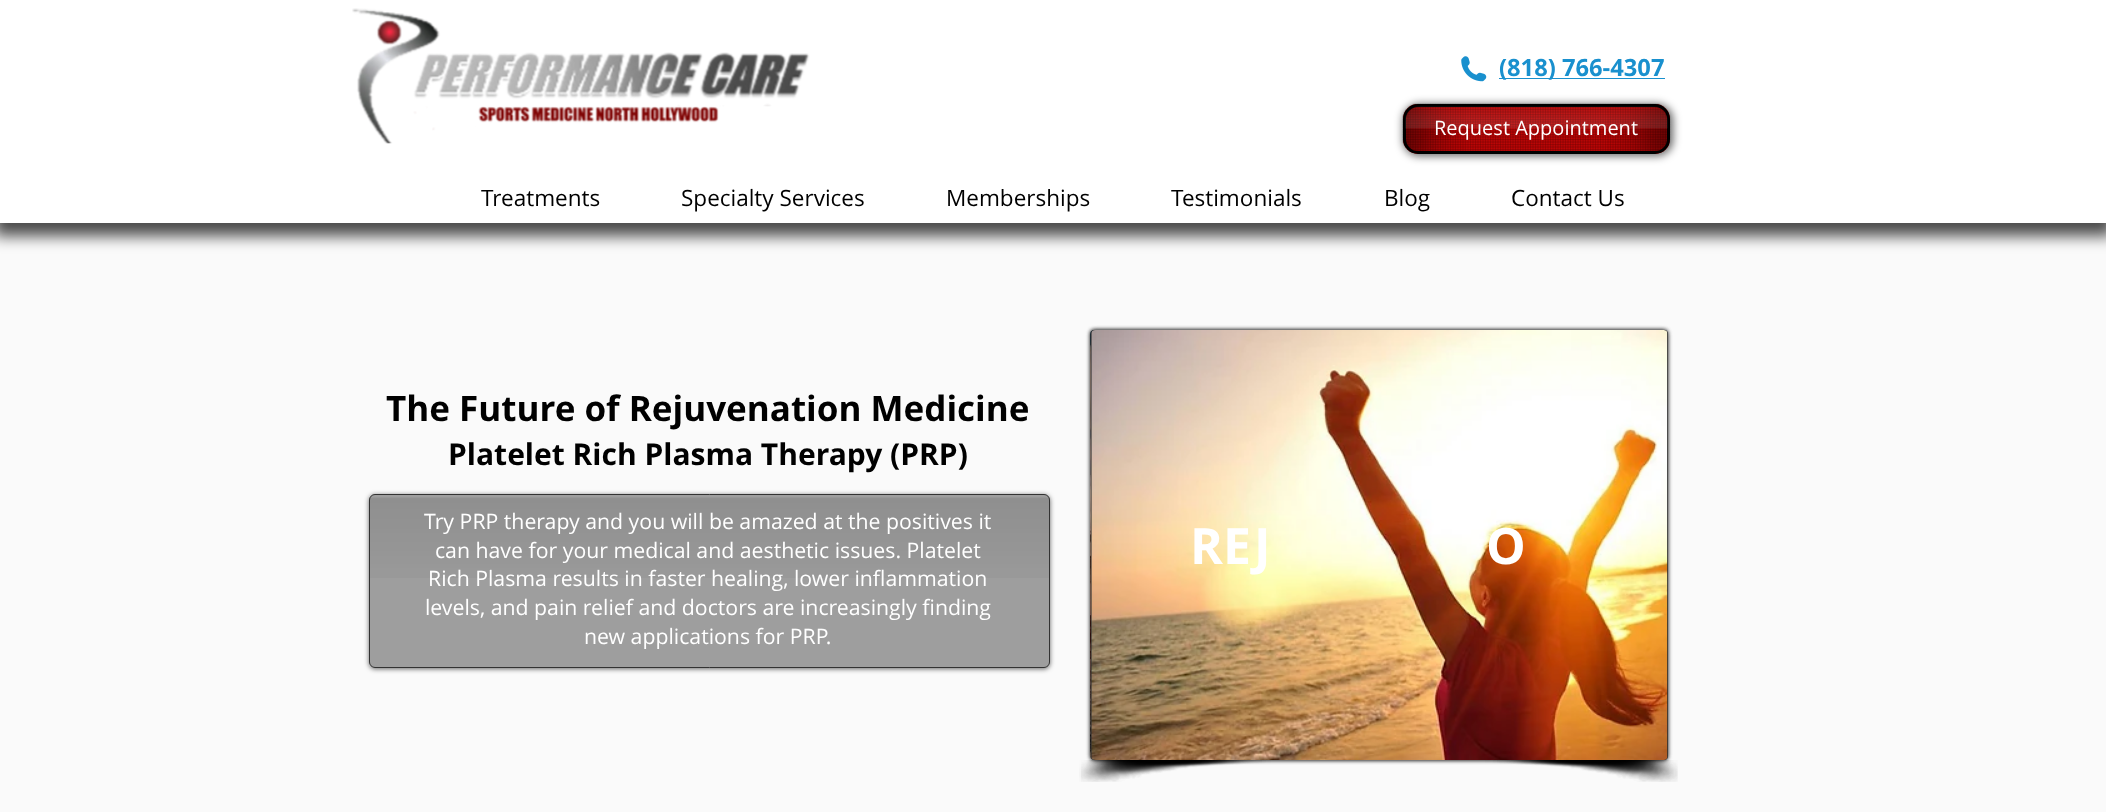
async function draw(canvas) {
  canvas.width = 2106;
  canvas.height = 812;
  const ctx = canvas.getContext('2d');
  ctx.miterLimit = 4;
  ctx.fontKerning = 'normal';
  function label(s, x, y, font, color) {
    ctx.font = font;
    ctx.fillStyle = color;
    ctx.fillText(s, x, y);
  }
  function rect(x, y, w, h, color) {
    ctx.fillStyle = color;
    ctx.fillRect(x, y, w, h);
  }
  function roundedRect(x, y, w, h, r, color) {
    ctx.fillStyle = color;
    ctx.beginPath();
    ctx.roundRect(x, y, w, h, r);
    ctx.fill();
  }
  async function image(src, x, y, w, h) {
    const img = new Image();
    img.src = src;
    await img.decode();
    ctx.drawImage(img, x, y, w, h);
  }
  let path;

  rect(0, 0, 2106, 812, '#fafafa');
  ctx.fillStyle = '#000000b3';
  ctx.filter = 'blur(7.5px)';
  ctx.beginPath();
  ctx.rect(-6, 1, 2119, 235);
  ctx.fill();
  ctx.filter = 'none';
  rect(0, 0, 2106, 223, '#fff');
  await image('assets/img1.png', 352, 8, 458, 136);
  await image('assets/img2.png', 1461, 56, 26, 26);
  rect(1499, 78, 166, 1, '#1990ce');
  label('(818) 766-4307', 1499, 76, 'bold 23.75px Open Sans', '#1990ce');
  ctx.fillStyle = '#00000099';
  ctx.filter = 'blur(4px)';
  ctx.beginPath();
  ctx.roundRect(1403, 104, 270, 52, 16);
  ctx.fill();
  ctx.filter = 'none';
  roundedRect(1403, 104, 267, 50, 15, '#e80707');
  await image('assets/img3.png', 1402, 103, 269, 51);
  ctx.beginPath();
  ctx.roundRect(1404.5, 105.5, 264, 47, 13.5);
  ctx.strokeStyle = '#000';
  ctx.lineWidth = 3;
  ctx.stroke();
  await image('assets/img5.png', 1406, 107, 59, 44);
  await image('assets/img6.png', 1607, 107, 60, 44);
  label('Request Appointment', 1434, 135, '20px Open Sans', '#fff');
  await image('assets/img4.png', 1405, 106, 263, 23);
  label('Treatments', 481, 206, '22.5px Open Sans', '#000');
  label('Specialty Services', 681, 206, '22.5px Open Sans', '#000');
  label('Memberships', 946, 206, '22.5px Open Sans', '#000');
  label('Testimonials', 1171, 206, '22.5px Open Sans', '#000');
  label('Blog', 1384, 206, '22.5px Open Sans', '#000');
  label('Contact Us', 1511, 206, '22.5px Open Sans', '#000');
  ctx.fillStyle = '#00000080';
  ctx.filter = 'blur(2px)';
  ctx.beginPath();
  ctx.roundRect(1090, 330, 576, 430, 4);
  ctx.fill();
  ctx.filter = 'none';
  await image('assets/img7.png', 1090, 330, 575, 430);
  await image('assets/img8.png', 1079, 760, 192, 22);
  await image('assets/img9.png', 1485, 760, 192, 22);
  ctx.filter = 'blur(2px)';
  ctx.beginPath();
  ctx.roundRect(1091, 330, 577, 430, 4);
  ctx.fill();
  ctx.filter = 'none';
  await image('assets/img10.png', 1091, 330, 577, 430);
  await image('assets/img11.png', 1081, 760, 185, 22);
  await image('assets/img12.png', 1493, 760, 185, 22);
  label('The Future of Rejuvenation Medicine', 386, 421, 'bold 35px Open Sans', '#000');
  ctx.fillStyle = '#00000080';
  ctx.filter = 'blur(2px)';
  ctx.beginPath();
  ctx.roundRect(1091, 330, 577, 430, 4);
  ctx.fill();
  ctx.filter = 'none';
  roundedRect(1091, 330, 577, 430, 4, '#333');
  await image('assets/img13.png', 1091, 330, 577, 430);
  await image('assets/img14.png', 1081, 760, 181, 22);
  await image('assets/img15.png', 1497, 760, 181, 22);
  label('Platelet Rich Plasma Therapy (PRP)', 448, 465, 'bold 30px Open Sans', '#000');
  ctx.save();
  path = new Path2D('M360 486H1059V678H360ZM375 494H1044C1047.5 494 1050 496.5 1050 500V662C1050 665.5 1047.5 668 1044 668H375C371.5 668 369 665.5 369 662V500C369 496.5 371.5 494 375 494Z');
  ctx.clip(path, 'evenodd');
  ctx.fillStyle = '#00000099';
  ctx.filter = 'blur(2.5px)';
  ctx.beginPath();
  ctx.roundRect(369, 495, 681, 174, 6);
  ctx.fill();
  ctx.filter = 'none';
  ctx.restore();
  roundedRect(369, 494, 681, 174, 6, '#33333375');
  await image('assets/img16.png', 369, 497, 681, 81);
  ctx.beginPath();
  ctx.roundRect(369.5, 494.5, 680, 173, 5.5);
  ctx.strokeStyle = '#333';
  ctx.lineWidth = 1;
  ctx.stroke();
  label('Try PRP therapy and you will be amazed at the positives it', 424, 529, '21.25px Open Sans', '#fff');
  label('can have for your medical and aesthetic issues. Platelet', 435, 558, '21.25px Open Sans', '#fff');
  label('Rich Plasma results in faster healing, lower inflammation', 428, 586, '21.25px Open Sans', '#fff');
  label('levels, and pain relief and doctors are increasingly finding', 425, 615, '21.25px Open Sans', '#fff');
  label('new applications for PRP.', 584, 644, '21.25px Open Sans', '#fff');
  label('REJ', 1190, 564, 'bold 50px Open Sans', '#fff');
  label('O', 1486, 564, 'bold 50px Open Sans', '#fff');
}

draw(document.querySelector('canvas'));
